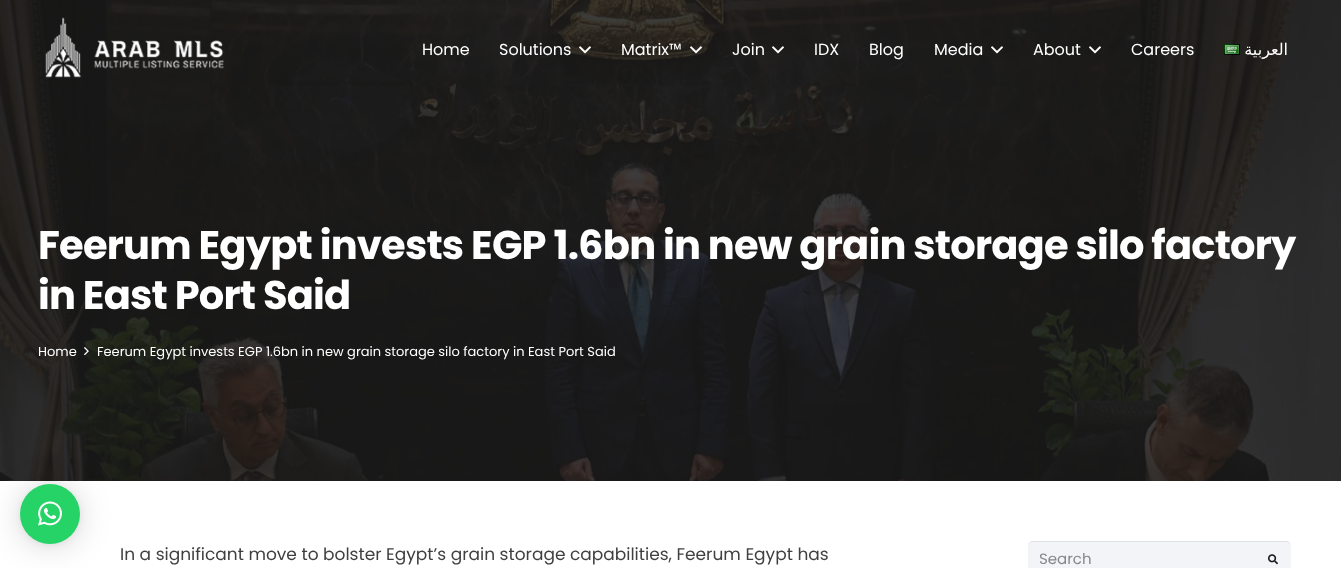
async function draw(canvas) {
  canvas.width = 1341;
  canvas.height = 568;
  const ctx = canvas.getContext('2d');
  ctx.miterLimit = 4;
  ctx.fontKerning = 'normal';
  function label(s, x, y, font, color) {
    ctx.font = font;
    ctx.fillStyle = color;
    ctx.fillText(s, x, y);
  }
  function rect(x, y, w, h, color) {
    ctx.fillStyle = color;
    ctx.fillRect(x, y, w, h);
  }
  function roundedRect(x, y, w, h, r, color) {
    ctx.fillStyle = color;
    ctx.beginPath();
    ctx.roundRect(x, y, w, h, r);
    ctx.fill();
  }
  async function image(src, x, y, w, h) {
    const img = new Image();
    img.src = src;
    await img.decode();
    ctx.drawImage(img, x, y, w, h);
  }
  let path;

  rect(0, 0, 1341, 568, '#fff');
  await image('assets/img8.png', 0, 0, 1341, 481);
  await image('assets/img1.png', 45, 17, 180, 61);
  label('Home', 422, 55, '16px Poppins', '#fff');
  label('Solutions', 499, 55, '16px Poppins', '#fff');
  await image('assets/img2.png', 579, 46, 12, 8);
  label('Matrix™', 621, 55, '16px Poppins', '#fff');
  await image('assets/img3.png', 690, 46, 12, 8);
  label('Join', 732, 55, '16px Poppins', '#fff');
  await image('assets/img4.png', 772, 46, 12, 8);
  label('IDX', 814, 55, '16px Poppins', '#fff');
  label('Blog', 869, 55, '16px Poppins', '#fff');
  label('Media', 934, 55, '16px Poppins', '#fff');
  await image('assets/img5.png', 991, 46, 12, 8);
  label('About', 1033, 55, '16px Poppins', '#fff');
  await image('assets/img6.png', 1089, 46, 12, 8);
  label('Careers', 1131, 55, '16px Poppins', '#fff');
  await image('assets/img7.png', 1224, 44, 16, 11);
  ctx.direction = 'rtl';
  label('العربية', 1288, 55, '16px DejaVu Sans', '#fff');
  ctx.letterSpacing = '-0.8px';
  ctx.direction = 'ltr';
  label('Feerum Egypt invests EGP 1.6bn in new grain storage silo factory', 38, 259, 'bold 40px Poppins', '#fff');
  label('in East Port Said', 38, 309, 'bold 40px Poppins', '#fff');
  ctx.letterSpacing = '0px';
  label('Home', 38, 356, '13px Poppins', '#fff');
  await image('assets/img9.png', 84, 347, 5, 9);
  label('Feerum Egypt invests EGP 1.6bn in new grain storage silo factory in East Port Said', 97, 356, '13px Poppins', '#fff');
  label('In a significant move to bolster Egypt’s grain storage capabilities, Feerum Egypt has', 120, 560, '17px Poppins', '#404040');
  roundedRect(1028, 541, 263, 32, 5, '#f2f4f7');
  ctx.fillStyle = '#00000014';
  path = new Path2D('M1032 542H1286C1289 542 1291 544 1291 546C1291 543 1289 541 1286 541H1033C1030 541 1028 543 1028 546C1028 544 1030 542 1032 542Z');
  ctx.fill(path);
  label('Search', 1039, 564, '15px Poppins', '#868789');
  await image('assets/img10.png', 1268, 554, 10, 11);
  ctx.fillStyle = '#00000029';
  ctx.filter = 'blur(16px)';
  ctx.beginPath();
  ctx.roundRect(20, 486, 60, 60, 30);
  ctx.fill();
  ctx.filter = 'none';
  ctx.fillStyle = '#0000000f';
  ctx.filter = 'blur(3px)';
  ctx.beginPath();
  ctx.roundRect(20, 485, 60, 60, 30);
  ctx.fill();
  ctx.filter = 'none';
  ctx.fillStyle = '#25d366';
  ctx.beginPath();
  ctx.arc(50, 514, 30, 0, 2 * Math.PI);
  ctx.fill();
  await image('assets/img11.png', 38, 501, 24, 25);
}

draw(document.querySelector('canvas'));
